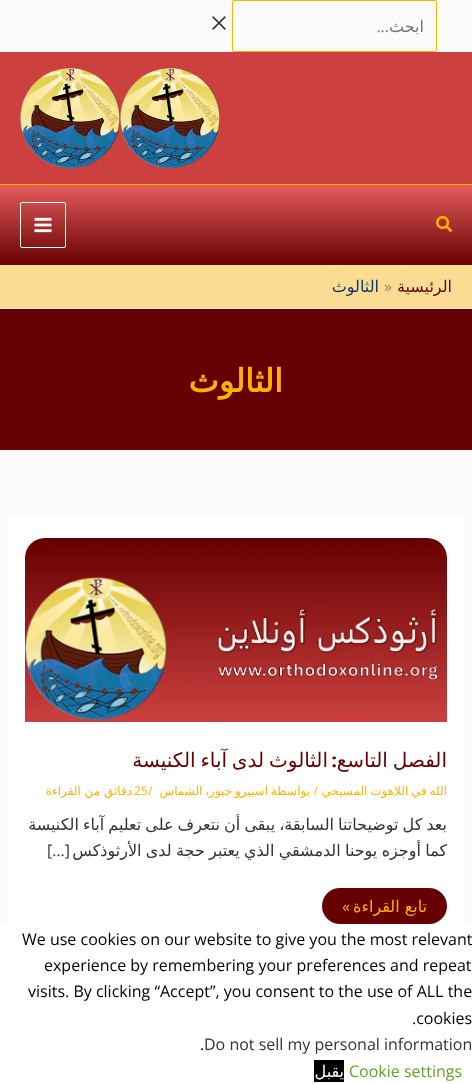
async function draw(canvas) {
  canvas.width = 472;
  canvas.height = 1084;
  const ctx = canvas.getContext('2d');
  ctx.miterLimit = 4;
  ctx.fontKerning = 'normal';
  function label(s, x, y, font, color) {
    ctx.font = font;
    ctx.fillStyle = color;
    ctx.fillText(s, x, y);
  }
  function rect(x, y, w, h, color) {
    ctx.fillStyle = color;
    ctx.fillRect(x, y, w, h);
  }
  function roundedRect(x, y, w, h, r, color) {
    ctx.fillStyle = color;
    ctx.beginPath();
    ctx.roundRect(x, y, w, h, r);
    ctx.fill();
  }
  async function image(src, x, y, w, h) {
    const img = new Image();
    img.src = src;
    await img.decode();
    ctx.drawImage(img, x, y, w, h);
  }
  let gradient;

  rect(0, 0, 472, 1084, '#fbfbfb');
  ctx.beginPath();
  ctx.roundRect(232.5, 0.5, 204, 51, 1.5);
  ctx.strokeStyle = '#fbb401';
  ctx.stroke();
  ctx.direction = 'rtl';
  label('ابحث', 424, 32, '16px DejaVu Sans', '#757575');
  label('...', 389, 32, '16px Open Sans', '#757575');
  await image('assets/img1.png', 212, 16, 14, 14);
  rect(0, 52, 472, 132, '#cc4040');
  rect(0, 184, 472, 1, '#fbb401');
  await image('assets/img2.png', 120, 68, 100, 100);
  await image('assets/img2.png', 20, 68, 100, 100);
  gradient = ctx.createLinearGradient(236, 185, 236, 265);
  gradient.addColorStop(0, '#e65c5c');
  gradient.addColorStop(1, '#600');
  ctx.fillStyle = gradient;
  ctx.fillRect(0, 185, 472, 80);
  await image('assets/img3.png', 436, 215, 16, 17);
  ctx.beginPath();
  ctx.roundRect(20.5, 202.5, 45, 45, 1.5);
  ctx.strokeStyle = '#fff';
  ctx.stroke();
  await image('assets/img4.png', 34, 217, 18, 16);
  rect(0, 265, 472, 43, '#fadd92');
  rect(0, 308, 472, 1, '#eaeaea');
  label('الرئيسية', 452, 292, '16px DejaVu Sans', '#600');
  ctx.direction = 'ltr';
  label('»', 384, 292, '16px Open Sans', '#e65c5c');
  ctx.direction = 'rtl';
  label('الثالوث', 379, 292, '16px DejaVu Sans', '#113866');
  rect(0, 309, 472, 141, '#600');
  label('الثالوث', 283, 392, 'bold 32px DejaVu Sans', '#fbb401');
  rect(9, 514, 454, 412, '#fff');
  await image('assets/img5.png', 25, 538, 422, 184);
  ctx.wordSpacing = '-1.5px';
  label('الفصل التاسع', 447, 767, '20px DejaVu Sans', '#600');
  ctx.wordSpacing = '0px';
  label(':', 337, 767, 'bold 20px Playfair Display', '#600');
  ctx.wordSpacing = '-1.5px';
  label('الثالوث لدى آباء الكنيسة', 328, 767, '20px DejaVu Sans', '#600');
  ctx.save();
  ctx.beginPath();
  ctx.roundRect(25, 538, 422, 399, 20);
  ctx.clip();
  ctx.wordSpacing = '-1px';
  label('الله في اللاهوت المسيحي', 447, 795, '12px DejaVu Sans', '#fbb401');
  ctx.restore();
  ctx.wordSpacing = '0px';
  label('/', 318, 795, '12px Open Sans', '#fbb401');
  label('بواسطة', 310, 795, '12px DejaVu Sans', '#fbb401');
  ctx.wordSpacing = '-1px';
  label('اسبيرو جبور، الشماس', 268, 795, '12px DejaVu Sans', '#fbb401');
  ctx.wordSpacing = '0px';
  ctx.direction = 'ltr';
  label('/', 148, 795, '12px Open Sans', '#fbb401');
  label('25', 134, 795, '12px Open Sans', '#fbb401');
  ctx.direction = 'rtl';
  label('دقائق من القراءة', 132, 795, '12px DejaVu Sans', '#fbb401');
  ctx.save();
  ctx.beginPath();
  ctx.roundRect(25, 538, 422, 399, 20);
  ctx.clip();
  ctx.wordSpacing = '-1px';
  label('بعد كل توضيحاتنا السابقة، يبقى أن نتعرف على تعليم آباء الكنيسة', 447, 830, '16px DejaVu Sans', '#323236');
  ctx.wordSpacing = '-0.75px';
  label('كما أوجزه يوحنا الدمشقي الذي يعتبر حجة لدى الأرثوذكس', 447, 856, '16px DejaVu Sans', '#323236');
  ctx.restore();
  label('[…]', 70, 856, '16px Open Sans', '#323236');
  roundedRect(322, 888, 125, 36, 18, '#600');
  label('تابع القراءة', 427, 912, '16px DejaVu Sans', '#fbb401');
  label('»', 350, 912, '16px Open Sans', '#fbb401');
  rect(0, 926, 472, 158, '#fff');
  ctx.direction = 'ltr';
  label('We use cookies on our website to give you the most relevant', 22, 945, '16px Open Sans', '#000');
  label('experience by remembering your preferences and repeat', 44, 971, '16px Open Sans', '#000');
  label('visits. By clicking “Accept”, you consent to the use of ALL the', 28, 997, '16px Open Sans', '#000');
  label('.cookies', 412, 1024, '16px Open Sans', '#000');
  label('Do not sell my personal information', 204, 1050, '16px Open Sans', '#323236');
  label('.', 200, 1050, '16px Open Sans', '#000');
  label('Cookie settings', 349, 1077, '16px Open Sans', '#62a329');
  rect(314, 1060, 30, 22, '#000');
  ctx.direction = 'rtl';
  label('يقبل', 344, 1077, '16px DejaVu Sans', '#fff');
}

draw(document.querySelector('canvas'));
